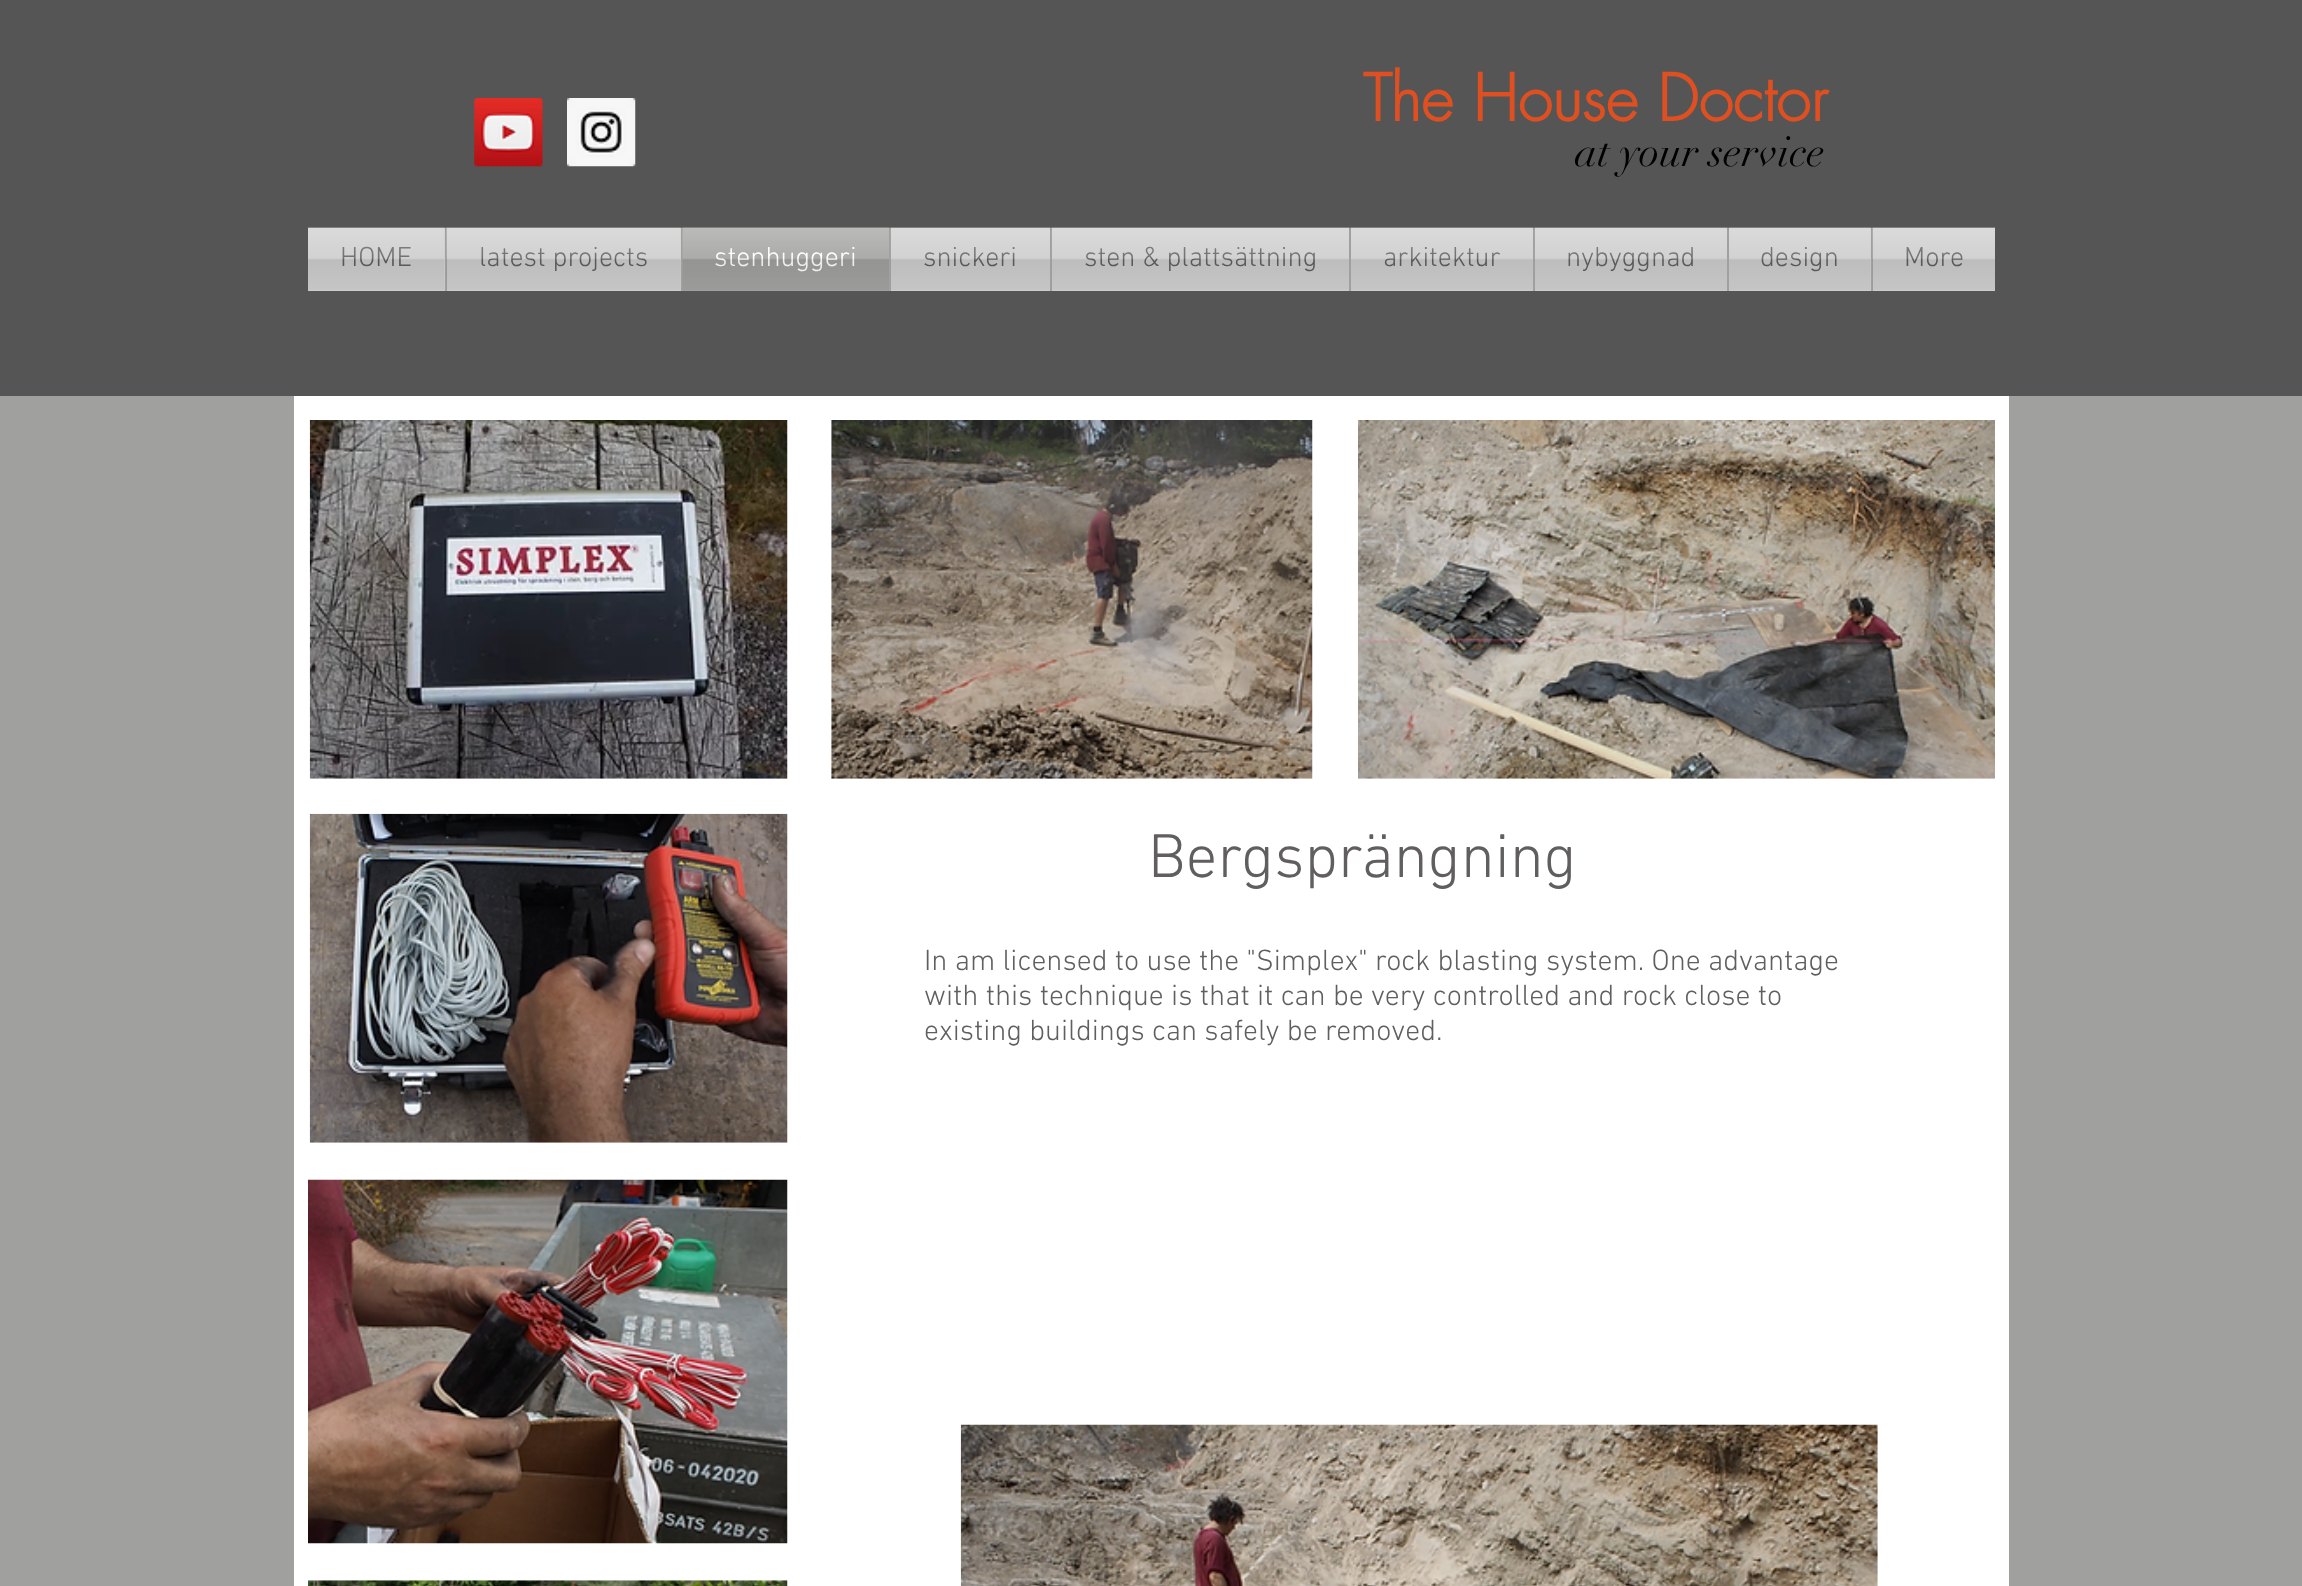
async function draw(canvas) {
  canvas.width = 2302;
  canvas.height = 1586;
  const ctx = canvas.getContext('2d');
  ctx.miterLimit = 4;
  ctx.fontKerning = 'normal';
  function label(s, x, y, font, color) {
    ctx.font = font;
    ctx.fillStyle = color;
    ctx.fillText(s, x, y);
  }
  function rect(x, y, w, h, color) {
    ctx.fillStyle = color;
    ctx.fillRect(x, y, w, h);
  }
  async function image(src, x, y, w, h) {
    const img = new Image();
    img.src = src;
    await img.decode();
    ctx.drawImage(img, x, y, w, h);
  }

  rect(0, 0, 2302, 1586, '#a0a09f');
  rect(0, 0, 2302, 396, '#555');
  await image('assets/img1.png', 474, 98, 69, 69);
  await image('assets/img2.png', 567, 98, 69, 69);
  label('The House Doctor', 1363, 121, 'bold 63px futura', '#de5021');
  label('at your service', 1575, 166, '42px didot', '#000');
  await image('assets/img3.png', 308, 227, 1687, 1);
  rect(308, 228, 137, 63, '#ccc');
  label('HOME', 340, 266, '300 28px "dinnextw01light"', '#605e5e');
  await image('assets/img4.png', 308, 227, 137, 63);
  rect(447, 228, 234, 63, '#ccc');
  rect(445, 228, 2, 63, '#a0a09f');
  label('latest projects', 479, 266, '300 28px "dinnextw01light"', '#605e5e');
  await image('assets/img5.png', 446, 227, 235, 63);
  rect(681, 228, 210, 63, '#a0a09f');
  label('stenhuggeri', 714, 266, '300 28px "dinnextw01light"', '#fff');
  await image('assets/img6.png', 682, 227, 207, 63);
  rect(891, 228, 159, 63, '#ccc');
  label('snickeri', 923, 266, '300 28px "dinnextw01light"', '#605e5e');
  await image('assets/img7.png', 890, 227, 160, 63);
  rect(1052, 228, 297, 63, '#ccc');
  rect(1050, 228, 2, 63, '#a0a09f');
  label('sten & plattsättning', 1084, 266, '300 28px "dinnextw01light"', '#605e5e');
  await image('assets/img8.png', 1051, 227, 299, 63);
  rect(1351, 228, 182, 63, '#ccc');
  rect(1349, 228, 2, 63, '#a0a09f');
  label('arkitektur', 1383, 266, '300 28px "dinnextw01light"', '#605e5e');
  await image('assets/img9.png', 1351, 227, 182, 63);
  rect(1535, 228, 192, 63, '#ccc');
  rect(1533, 228, 2, 63, '#a0a09f');
  label('nybyggnad', 1566, 266, '300 28px "dinnextw01light"', '#605e5e');
  await image('assets/img10.png', 1534, 227, 194, 63);
  rect(1729, 228, 142, 63, '#ccc');
  rect(1727, 228, 2, 63, '#a0a09f');
  label('design', 1760, 266, '300 28px "dinnextw01light"', '#605e5e');
  await image('assets/img11.png', 1729, 227, 142, 63);
  rect(1873, 228, 122, 63, '#ccc');
  rect(1871, 228, 2, 63, '#a0a09f');
  label('More', 1904, 266, '300 28px "dinnextw01light"', '#605e5e');
  await image('assets/img12.png', 1872, 227, 123, 63);
  rect(294, 396, 1715, 1190, '#fff');
  await image('assets/img13.png', 309, 420, 479, 359);
  await image('assets/img14.png', 831, 420, 482, 359);
  await image('assets/img15.png', 1358, 420, 637, 359);
  await image('assets/img16.png', 309, 813, 479, 330);
  label('Bergsprängning', 1148, 877, '300 63px "dinnextw01light"', '#605e5e');
  label('In am licensed to use the "Simplex" rock blasting system. One advantage', 924, 970, '300 29.75px "dinnextw01light"', '#605e5e');
  label('with this technique is that it can be very controlled and rock close to', 924, 1005, '300 29.75px "dinnextw01light"', '#605e5e');
  label('existing buildings can safely be removed.', 924, 1040, '300 29.75px "dinnextw01light"', '#605e5e');
  await image('assets/img17.png', 308, 1179, 480, 365);
  await image('assets/img18.png', 960, 1424, 918, 162);
  await image('assets/img19.png', 308, 1580, 480, 6);
}

draw(document.querySelector('canvas'));
